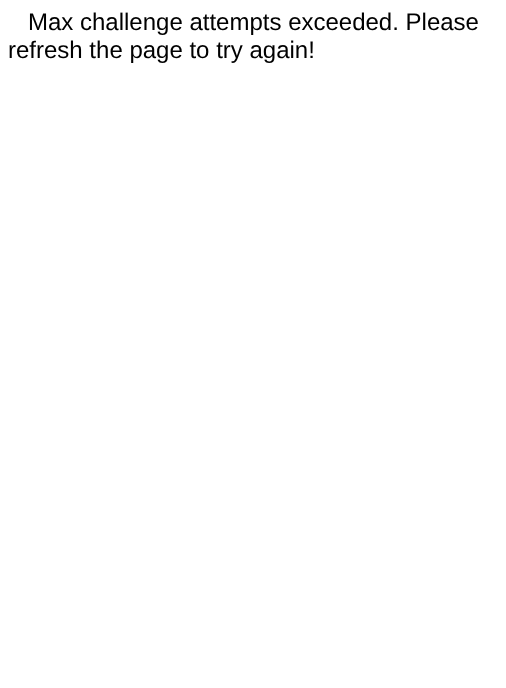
async function draw(canvas) {
  canvas.width = 506;
  canvas.height = 688;
  const ctx = canvas.getContext('2d');
  ctx.miterLimit = 4;
  ctx.fontKerning = 'normal';
  function label(s, x, y, font, color) {
    ctx.font = font;
    ctx.fillStyle = color;
    ctx.fillText(s, x, y);
  }
  function rect(x, y, w, h, color) {
    ctx.fillStyle = color;
    ctx.fillRect(x, y, w, h);
  }

  rect(0, 0, 506, 688, '#fff');
  label('Max challenge attempts exceeded. Please', 28, 30, '24px Liberation Sans', '#000');
  label('refresh the page to try again!', 8, 58, '24px Liberation Sans', '#000');
}

draw(document.querySelector('canvas'));
